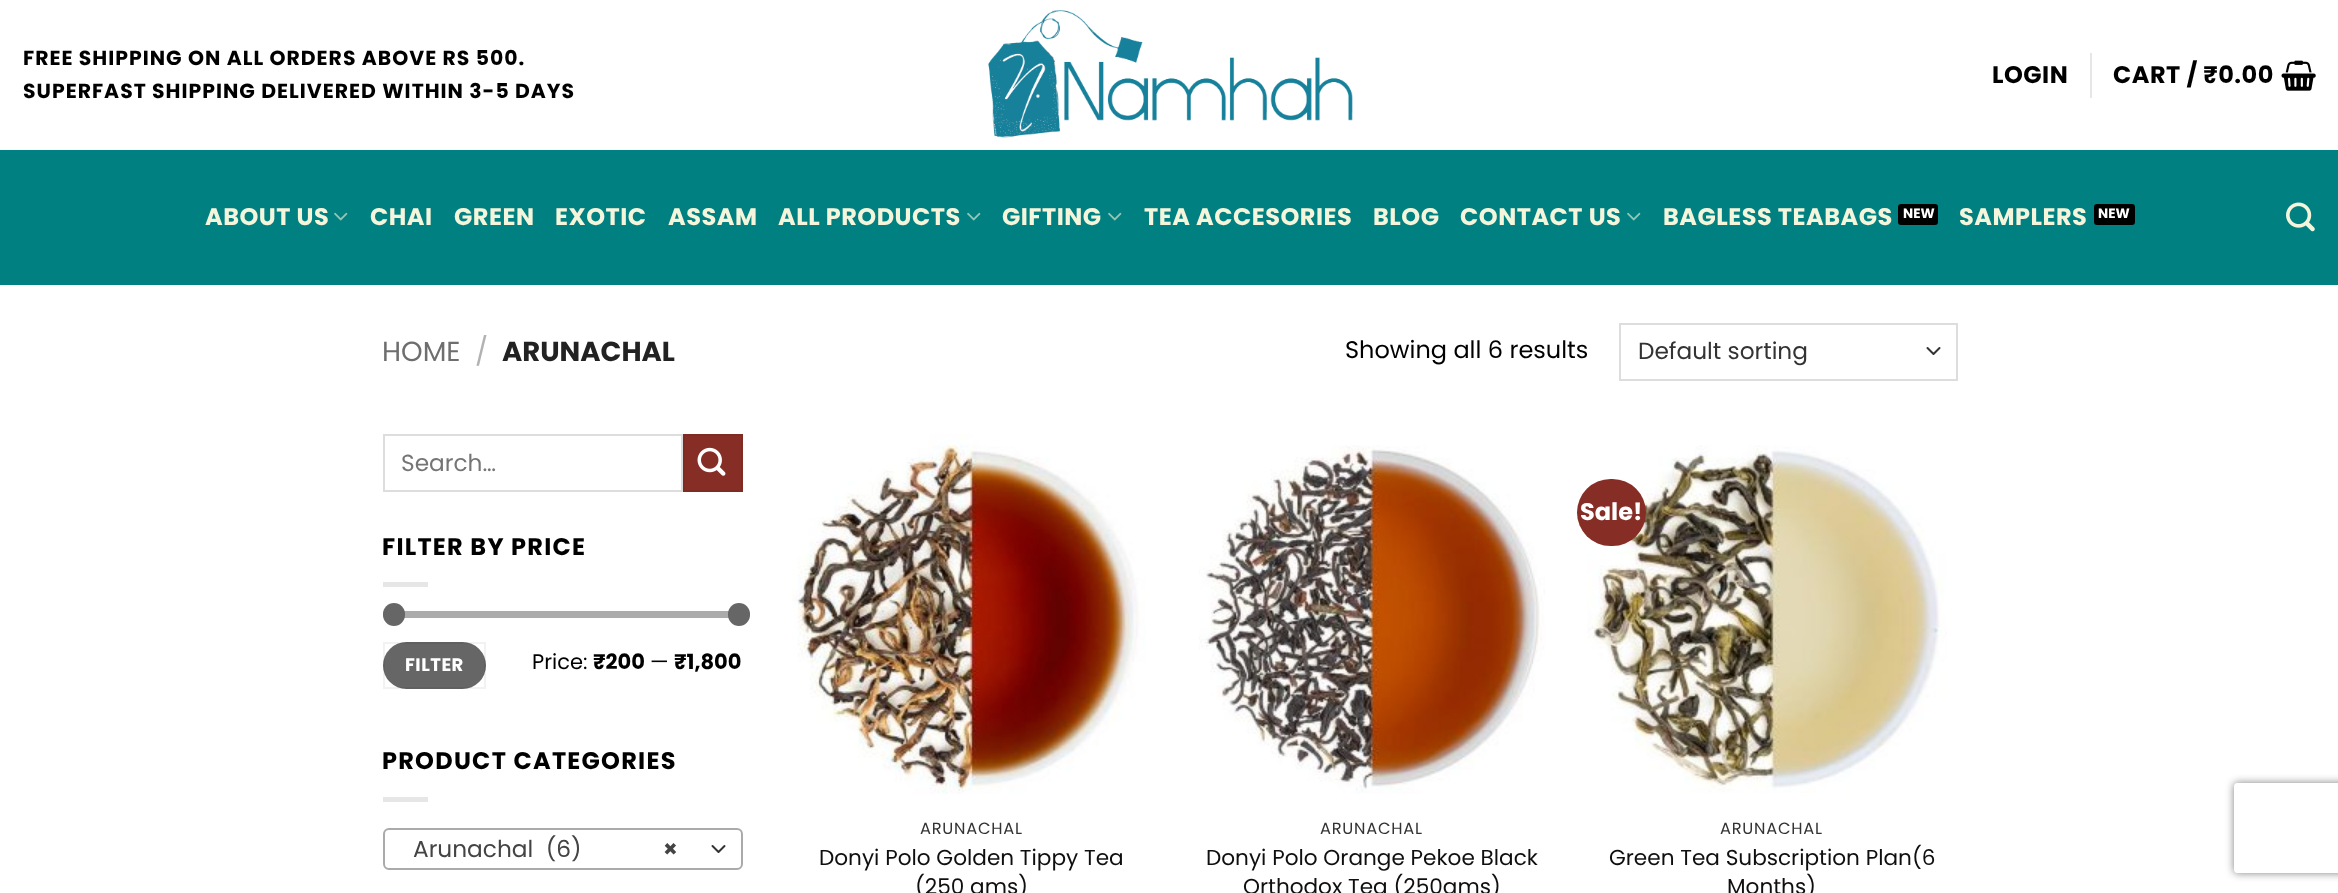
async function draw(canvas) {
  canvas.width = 2338;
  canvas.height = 893;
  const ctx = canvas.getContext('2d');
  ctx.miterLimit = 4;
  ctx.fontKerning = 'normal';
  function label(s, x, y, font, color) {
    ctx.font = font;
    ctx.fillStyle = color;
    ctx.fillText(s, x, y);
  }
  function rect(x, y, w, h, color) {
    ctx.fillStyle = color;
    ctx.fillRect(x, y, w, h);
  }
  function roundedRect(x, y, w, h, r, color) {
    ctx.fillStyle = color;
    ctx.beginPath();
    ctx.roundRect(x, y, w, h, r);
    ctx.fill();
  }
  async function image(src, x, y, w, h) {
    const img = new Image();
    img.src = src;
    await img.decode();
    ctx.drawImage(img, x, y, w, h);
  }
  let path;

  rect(0, 0, 2338, 893, '#fff');
  ctx.letterSpacing = '1px';
  label('FREE SHIPPING ON ALL ORDERS ABOVE RS 500.', 23, 65, 'bold 20.4px Poppins', '#000');
  label('SUPERFAST SHIPPING DELIVERED WITHIN 3-5 DAYS', 23, 98, 'bold 20.4px Poppins', '#000');
  await image('assets/img1.png', 988, 10, 365, 128);
  ctx.letterSpacing = '0.5px';
  label('LOGIN', 1992, 83, 'bold 24px Poppins', '#000');
  rect(2090, 53, 2, 45, '#e6e6e6');
  label('CART / ₹0.00', 2113, 83, 'bold 24px Poppins', '#000');
  await image('assets/img2.png', 2281, 60, 35, 31);
  rect(0, 150, 2338, 135, '#008080');
  label('ABOUT US', 205, 225, 'bold 24px Poppins', '#f5f5dc');
  await image('assets/img3.png', 334, 212, 14, 9);
  label('CHAI', 370, 225, 'bold 24px Poppins', '#f5f5dc');
  label('GREEN', 454, 225, 'bold 24px Poppins', '#f5f5dc');
  label('EXOTIC', 555, 225, 'bold 24px Poppins', '#f5f5dc');
  label('ASSAM', 668, 225, 'bold 24px Poppins', '#f5f5dc');
  label('ALL PRODUCTS', 778, 225, 'bold 24px Poppins', '#f5f5dc');
  await image('assets/img3.png', 967, 212, 14, 9);
  label('GIFTING', 1002, 225, 'bold 24px Poppins', '#f5f5dc');
  await image('assets/img3.png', 1108, 212, 14, 9);
  label('TEA ACCESORIES', 1144, 225, 'bold 24px Poppins', '#f5f5dc');
  label('BLOG', 1373, 225, 'bold 24px Poppins', '#f5f5dc');
  label('CONTACT US', 1460, 225, 'bold 24px Poppins', '#f5f5dc');
  await image('assets/img3.png', 1627, 212, 14, 9);
  label('BAGLESS TEABAGS', 1663, 225, 'bold 24px Poppins', '#f5f5dc');
  roundedRect(1898, 204, 40, 21, 3, '#000');
  ctx.letterSpacing = '0px';
  label('NEW', 1903, 218, 'bold 13.5px Poppins', '#fff');
  ctx.letterSpacing = '0.5px';
  label('SAMPLERS', 1959, 225, 'bold 24px Poppins', '#f5f5dc');
  roundedRect(2094, 204, 41, 21, 3, '#000');
  ctx.letterSpacing = '0px';
  label('NEW', 2098, 218, 'bold 13.5px Poppins', '#fff');
  await image('assets/img4.png', 2286, 202, 29, 30);
  label('HOME', 382, 361, '27.5px Poppins', '#6e6e6e');
  label('/', 475, 361, '27.5px Poppins', '#b2b2b2');
  label('ARUNACHAL', 502, 361, 'bold 27.5px Poppins', '#222');
  label('Showing all 6 results', 1345, 358, '24px Poppins', '#000');
  path = new Path2D('M1927.5 348L1933.5 354L1939.5 348');
  ctx.strokeStyle = '#333';
  ctx.lineWidth = 2;
  ctx.lineCap = 'round';
  ctx.lineJoin = 'round';
  ctx.stroke(path);
  ctx.strokeStyle = '#ddd';
  ctx.lineJoin = 'miter';
  ctx.strokeRect(1620, 324, 337, 56);
  label('Default sorting', 1638, 359, '23.25px Poppins', '#333');
  ctx.strokeRect(384, 435, 298, 56);
  label('Search…', 401, 471, '23.25px Poppins', '#757575');
  ctx.fillStyle = '#862d26';
  ctx.beginPath();
  ctx.rect(684, 435, 58, 56);
  ctx.fill();
  ctx.strokeStyle = '#7f2b24';
  ctx.stroke();
  await image('assets/img5.png', 697, 447, 29, 29);
  ctx.letterSpacing = '1.25px';
  label('FILTER BY PRICE', 382, 555, 'bold 24px Poppins', '#000');
  rect(383, 582, 45, 5, '#e6e6e6');
  roundedRect(383, 611, 360, 7, 3.5, '#f1f1f1');
  roundedRect(383, 611, 360, 7, 3.5, '#66666680');
  roundedRect(383, 603, 22, 23, 11, '#666');
  roundedRect(728, 603, 22, 23, 11, '#666');
  roundedRect(383, 642, 103, 47, 23.5, '#666');
  ctx.strokeStyle = '#0000000d';
  ctx.strokeRect(384, 643, 101, 45);
  ctx.letterSpacing = '0.5px';
  label('FILTER', 405, 671, 'bold 18px Poppins', '#fff');
  ctx.letterSpacing = '0px';
  label('Price:', 532, 669, '21px Poppins', '#000');
  label('₹200', 593, 669, 'bold 21px Poppins', '#000');
  label('—', 650, 669, '21px Poppins', '#000');
  label('₹1,800', 674, 669, 'bold 21px Poppins', '#000');
  ctx.letterSpacing = '1.25px';
  label('PRODUCT CATEGORIES', 382, 769, 'bold 24px Poppins', '#000');
  rect(383, 797, 45, 5, '#e6e6e6');
  path = new Path2D('M712.5 846L718.5 852L724.5 846');
  ctx.strokeStyle = '#333';
  ctx.lineJoin = 'round';
  ctx.stroke(path);
  ctx.beginPath();
  ctx.roundRect(384, 829, 358, 40, 5);
  ctx.strokeStyle = '#aaa';
  ctx.lineJoin = 'miter';
  ctx.stroke();
  ctx.letterSpacing = '0px';
  label('Arunachal  (6)', 413, 857, '23.25px Poppins', '#444');
  label('×', 663, 857, 'bold 23.25px Poppins', '#444');
  await image('assets/img6.png', 792, 434, 354, 360);
  ctx.letterSpacing = '0.75px';
  label('ARUNACHAL', 920, 834, '16.25px Poppins', '#333');
  ctx.letterSpacing = '0px';
  label('Donyi Polo Golden Tippy Tea', 819, 865, '21.6px Poppins', '#0f0f0f');
  label('(250 gms)', 915, 894, '21.6px Poppins', '#0f0f0f');
  await image('assets/img7.png', 1199, 445, 346, 349);
  ctx.letterSpacing = '0.75px';
  label('ARUNACHAL', 1320, 834, '16.25px Poppins', '#333');
  ctx.letterSpacing = '0px';
  label('Donyi Polo Orange Pekoe Black', 1206, 865, '21.6px Poppins', '#0f0f0f');
  label('Orthodox Tea (250gms)', 1243, 894, '21.6px Poppins', '#0f0f0f');
  await image('assets/img8.png', 1587, 445, 360, 348);
  roundedRect(1577, 479, 69, 67, 33.5, '#862d26');
  label('Sale!', 1580, 520, 'bold 24px Poppins', '#fff');
  ctx.letterSpacing = '0.75px';
  label('ARUNACHAL', 1720, 834, '16.25px Poppins', '#333');
  ctx.letterSpacing = '0px';
  label('Green Tea Subscription Plan(6', 1609, 865, '21.6px Poppins', '#0f0f0f');
  label('Months)', 1727, 894, '21.6px Poppins', '#0f0f0f');
  ctx.save();
  path = new Path2D('M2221 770H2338V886H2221ZM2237 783H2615C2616.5 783 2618 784.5 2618 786V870C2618 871.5 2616.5 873 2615 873H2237C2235.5 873 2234 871.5 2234 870V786C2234 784.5 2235.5 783 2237 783Z');
  ctx.clip(path, 'evenodd');
  ctx.fillStyle = '#808080';
  ctx.filter = 'blur(4px)';
  ctx.beginPath();
  ctx.roundRect(2234, 783, 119, 90, 3);
  ctx.fill();
  ctx.filter = 'none';
  ctx.restore();
}

draw(document.querySelector('canvas'));
